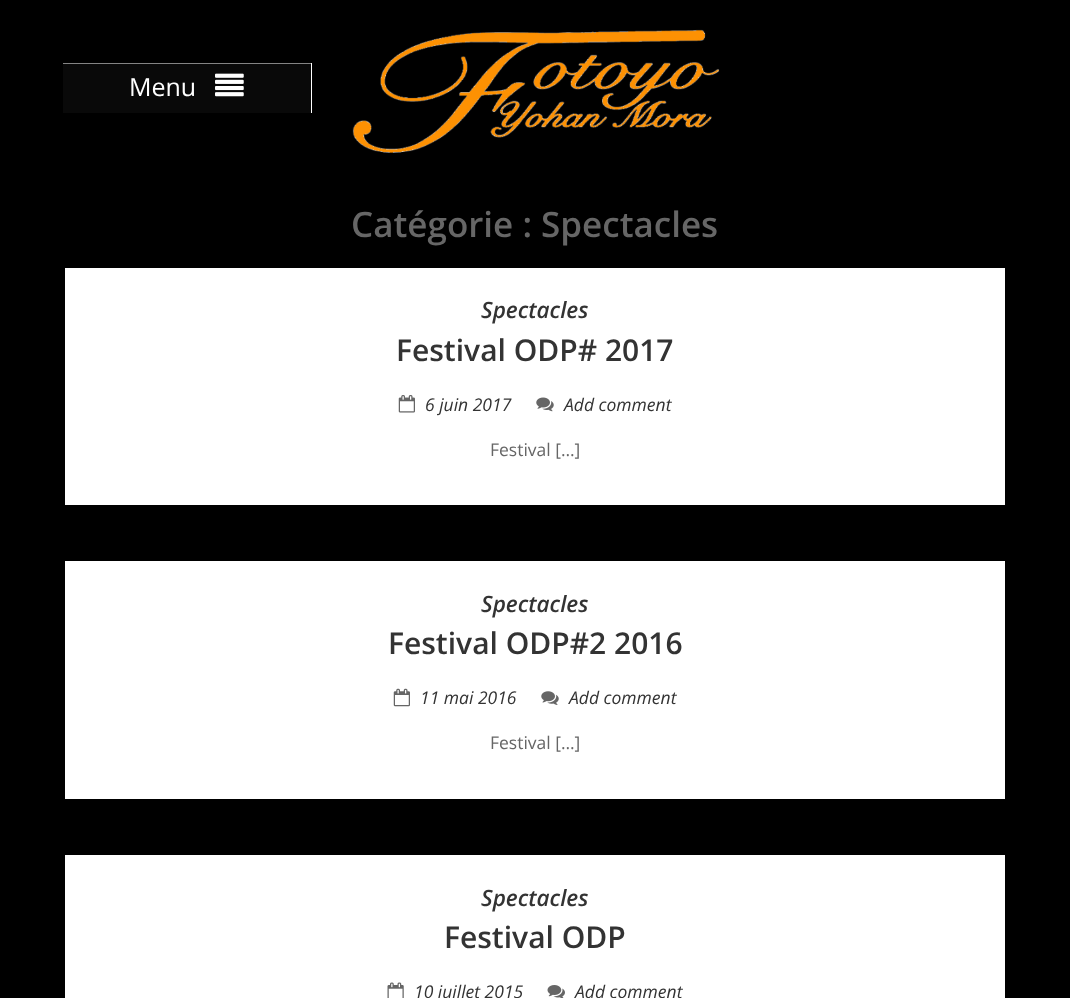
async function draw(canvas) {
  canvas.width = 1070;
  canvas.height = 998;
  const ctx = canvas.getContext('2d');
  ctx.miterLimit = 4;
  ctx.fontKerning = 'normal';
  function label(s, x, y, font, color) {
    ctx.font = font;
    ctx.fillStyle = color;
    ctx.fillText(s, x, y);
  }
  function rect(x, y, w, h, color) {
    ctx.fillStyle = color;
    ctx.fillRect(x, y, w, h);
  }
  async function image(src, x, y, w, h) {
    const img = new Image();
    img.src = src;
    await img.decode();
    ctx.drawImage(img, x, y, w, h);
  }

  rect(0, 0, 1070, 998, '#000');
  rect(311, 63, 1, 50, '#fff');
  rect(63, 64, 248, 49, '#090909');
  rect(63, 63, 248, 1, '#848484');
  label('Menu', 129, 96, '25px Open Sans', '#fff');
  await image('assets/img1.png', 215, 73, 29, 24);
  await image('assets/img2.png', 352, 29, 368, 124);
  label('Catégorie : Spectacles', 351, 237, '600 35px Open Sans', '#666');
  ctx.fillStyle = '#ddd';
  ctx.filter = 'blur(0.5px)';
  ctx.beginPath();
  ctx.rect(65, 268, 940, 237);
  ctx.fill();
  ctx.filter = 'none';
  rect(65, 268, 940, 237, '#fff');
  label('Spectacles', 481, 318, 'italic 600 22.5px Open Sans', '#333');
  label('Festival ODP# 2017', 396, 361, '600 30px Open Sans', '#333');
  await image('assets/img3.png', 398, 395, 17, 18);
  label('6 juin 2017', 425, 411, 'italic 17.5px Open Sans', '#333');
  await image('assets/img4.png', 536, 397, 18, 15);
  label('Add comment', 564, 411, 'italic 17.5px Open Sans', '#333');
  label('Festival […]', 490, 456, '17.5px Open Sans', '#666');
  ctx.fillStyle = '#ddd';
  ctx.filter = 'blur(0.5px)';
  ctx.beginPath();
  ctx.rect(65, 561, 940, 238);
  ctx.fill();
  ctx.filter = 'none';
  rect(65, 561, 940, 238, '#fff');
  label('Spectacles', 481, 612, 'italic 600 22.5px Open Sans', '#333');
  label('Festival ODP#2 2016', 388, 654, '600 30px Open Sans', '#333');
  await image('assets/img5.png', 393, 688, 17, 19);
  label('11 mai 2016', 420, 704, 'italic 17.5px Open Sans', '#333');
  await image('assets/img6.png', 541, 691, 18, 14);
  label('Add comment', 569, 704, 'italic 17.5px Open Sans', '#333');
  label('Festival […]', 490, 749, '17.5px Open Sans', '#666');
  ctx.fillStyle = '#ddd';
  ctx.filter = 'blur(0.5px)';
  ctx.beginPath();
  ctx.rect(65, 855, 940, 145);
  ctx.fill();
  ctx.filter = 'none';
  rect(65, 855, 940, 143, '#fff');
  label('Spectacles', 481, 906, 'italic 600 22.5px Open Sans', '#333');
  label('Festival ODP', 444, 948, '600 30px Open Sans', '#333');
  await image('assets/img7.png', 387, 982, 17, 16);
  label('10 juillet 2015', 414, 998, 'italic 17.5px Open Sans', '#333');
  await image('assets/img8.png', 547, 985, 18, 13);
  label('Add comment', 575, 998, 'italic 17.5px Open Sans', '#333');
}

draw(document.querySelector('canvas'));
